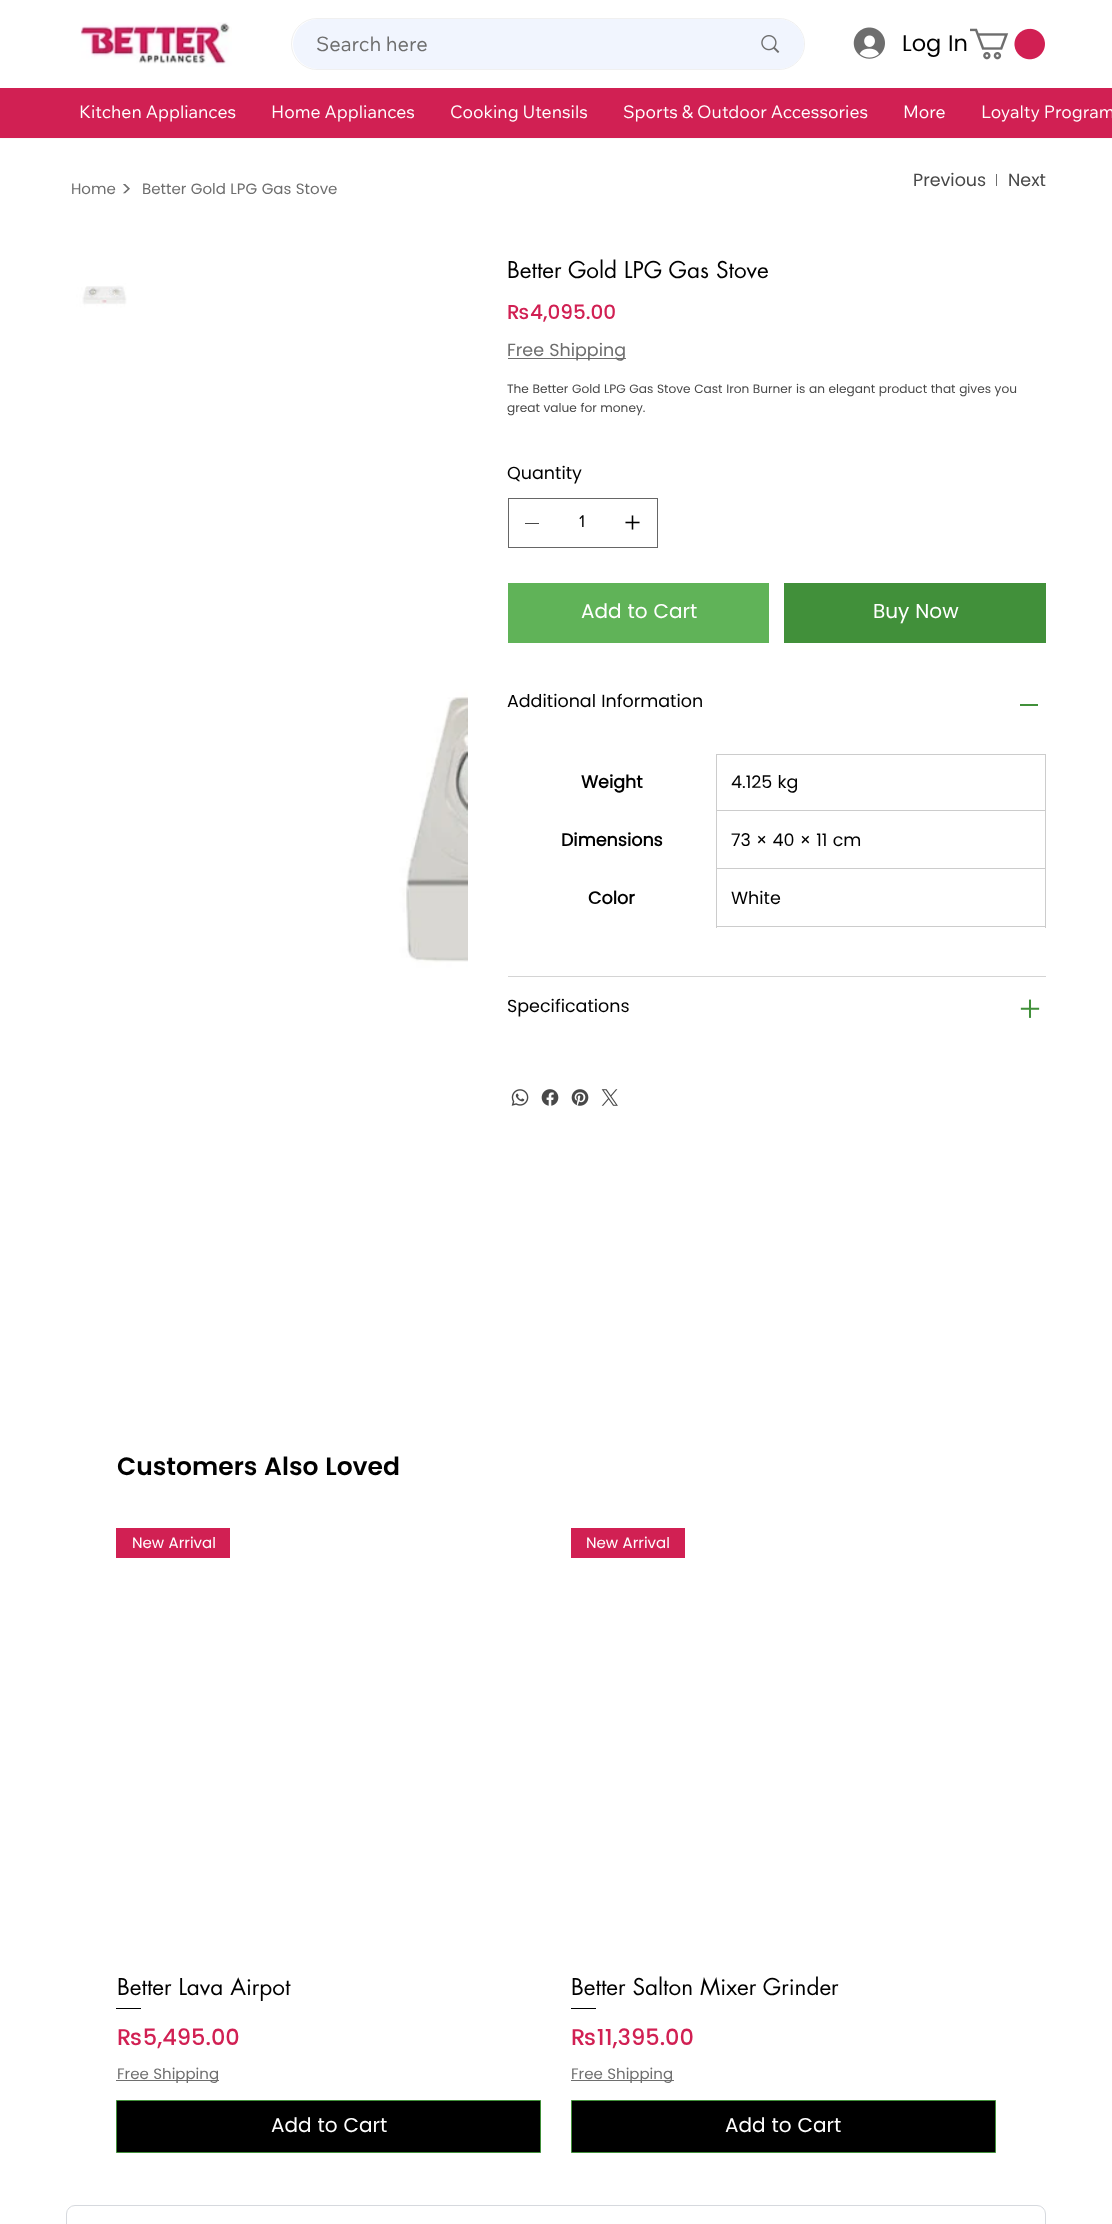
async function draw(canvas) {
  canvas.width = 1112;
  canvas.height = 2224;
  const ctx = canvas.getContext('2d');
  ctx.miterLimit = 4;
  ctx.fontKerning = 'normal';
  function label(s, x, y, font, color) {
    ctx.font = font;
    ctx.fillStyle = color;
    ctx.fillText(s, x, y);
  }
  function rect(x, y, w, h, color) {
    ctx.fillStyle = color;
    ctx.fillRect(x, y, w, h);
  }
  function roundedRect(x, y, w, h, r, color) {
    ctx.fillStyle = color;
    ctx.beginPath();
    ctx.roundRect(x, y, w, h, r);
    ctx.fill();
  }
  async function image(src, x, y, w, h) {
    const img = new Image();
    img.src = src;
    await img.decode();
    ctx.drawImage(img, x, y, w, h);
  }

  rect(0, 0, 1112, 2224, '#fff');
  await image('assets/img1.png', 80, 22, 152, 45);
  ctx.beginPath();
  ctx.roundRect(291.5, 18.5, 513, 51, 25.5);
  ctx.strokeStyle = '#f0f0f0';
  ctx.stroke();
  roundedRect(293, 19, 511, 50, 25, '#f1f5fe');
  label('Search here', 316, 51, '20px Wix Madefor Text', '#6e6e6e');
  await image('assets/img2.png', 761, 35, 19, 18);
  await image('assets/img3.png', 853, 27, 32, 32);
  label('Log In', 902, 51, '22.5px Poppins', '#000');
  await image('assets/img4.png', 970, 28, 75, 32);
  ctx.fillStyle = '#00000099';
  ctx.filter = 'blur(1.5px)';
  ctx.beginPath();
  ctx.rect(-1, 85, 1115, 51);
  ctx.fill();
  ctx.filter = 'none';
  rect(0, 82, 1112, 6, '#fff');
  rect(0, 88, 1112, 50, '#d12053');
  label('Kitchen Appliances', 79, 118, '17.5px Wix Madefor Text', '#fff');
  label('Home Appliances', 271, 118, '17.5px Wix Madefor Text', '#fff');
  label('Cooking Utensils', 450, 118, '17.5px Wix Madefor Text', '#fff');
  label('Sports & Outdoor Accessories', 623, 118, '17.5px Wix Madefor Text', '#fff');
  label('More', 903, 118, '17.5px Wix Madefor Text', '#fff');
  label('Loyalty Program', 981, 118, '17.5px Wix Madefor Text', '#fff');
  label('Previous', 913, 186, '17.5px Poppins', '#484848');
  rect(996, 174, 1, 12, '#6e6e6e');
  label('Next', 1008, 186, '17.5px Poppins', '#484848');
  label('Home', 71, 194, '15px Poppins', '#6e6e6e');
  label('>', 121, 196, '20px Poppins', '#6e6e6e');
  label('Better Gold LPG Gas Stove', 142, 194, '15px Poppins', '#6e6e6e');
  await image('assets/img5.png', 76, 283, 51, 25);
  await image('assets/img6.png', 286, 547, 182, 534);
  label('Better Gold LPG Gas Stove', 507, 278, '22.5px futura', '#000');
  label('₨4,095.00', 507, 319, '500 20px Poppins', '#d12053');
  rect(508, 358, 118, 1, '#6e6e6e');
  label('Free Shipping', 507, 356, '17.5px Poppins', '#6e6e6e');
  label('The Better Gold LPG Gas Stove Cast Iron Burner is an elegant product that gives you', 507, 393, '12.15px Poppins', '#484848');
  label('great value for money.', 507, 412, '12.15px Poppins', '#484848');
  label('Quantity', 507, 479, '17.5px Poppins', '#000');
  ctx.strokeStyle = '#666';
  ctx.strokeRect(508.5, 498.5, 149, 49);
  rect(525, 523, 14, 1, '#484848');
  label('1', 579, 527, '17.5px "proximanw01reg"', '#000');
  await image('assets/img7.png', 625, 515, 15, 15);
  rect(508, 583, 261, 60, '#60b358');
  label('Add to Cart', 581, 618, '20px Poppins', '#fff');
  rect(784, 583, 262, 60, '#41903a');
  label('Buy Now', 873, 618, '20px Poppins', '#fff');
  label('Additional Information', 507, 707, '17.5px Poppins', '#000');
  rect(1020, 704, 18, 2, '#41903a');
  label('Weight', 581, 788, 'bold 17.5px Poppins', '#000');
  ctx.strokeStyle = '#ccc';
  ctx.strokeRect(716.5, 754.5, 329, 56);
  label('4.125 kg', 731, 788, '17.5px Poppins', '#000');
  label('Dimensions', 561, 846, 'bold 17.5px Poppins', '#000');
  rect(1045, 811, 1, 117, '#ccc');
  rect(716, 868, 330, 1, '#ccc');
  rect(716, 811, 1, 58, '#ccc');
  label('73 × 40 × 11 cm', 731, 846, '17.5px Poppins', '#000');
  label('Color', 588, 904, 'bold 17.5px Poppins', '#000');
  rect(716, 926, 330, 1, '#ccc');
  rect(716, 869, 1, 59, '#ccc');
  label('White', 731, 904, '17.5px Poppins', '#000');
  rect(508, 976, 538, 1, '#d4d4d4');
  label('Specifications', 507, 1012, '17.5px Poppins', '#000');
  await image('assets/img8.png', 1020, 999, 20, 19);
  await image('assets/img9.png', 511, 1089, 18, 17);
  await image('assets/img10.png', 541, 1089, 18, 17);
  await image('assets/img11.png', 571, 1089, 18, 17);
  await image('assets/img12.png', 601, 1089, 17, 17);
  label('Customers Also Loved', 117, 1475, '600 25px Poppins', '#000');
  rect(116, 1528, 114, 30, '#d12053');
  label('New Arrival', 132, 1548, '15px Poppins', '#fff');
  label('Better Lava Airpot', 117, 1995, '22.5px futura', '#000');
  rect(116, 2008, 25, 1, '#000');
  label('₨5,495.00', 117, 2045, '500 22.5px Poppins', '#d12053');
  rect(116, 2080, 103, 1, '#6e6e6e');
  label('Free Shipping', 117, 2079, '15px Poppins', '#6e6e6e');
  ctx.fillStyle = '#000';
  ctx.beginPath();
  ctx.rect(116.5, 2100.5, 424, 52);
  ctx.fill();
  ctx.strokeStyle = '#41903a';
  ctx.stroke();
  label('Add to Cart', 271, 2132, '20px Poppins', '#fff');
  rect(571, 1528, 114, 30, '#d12053');
  label('New Arrival', 586, 1548, '15px Poppins', '#fff');
  label('Better Salton Mixer Grinder', 571, 1995, '22.5px futura', '#000');
  rect(571, 2008, 25, 1, '#000');
  label('₨11,395.00', 571, 2045, '500 22.5px Poppins', '#d12053');
  rect(571, 2080, 103, 1, '#6e6e6e');
  label('Free Shipping', 571, 2079, '15px Poppins', '#6e6e6e');
  ctx.fillStyle = '#000';
  ctx.beginPath();
  ctx.rect(571.5, 2100.5, 424, 52);
  ctx.fill();
  ctx.stroke();
  label('Add to Cart', 725, 2132, '20px Poppins', '#fff');
  ctx.beginPath();
  ctx.roundRect(66.5, 2205.5, 979, 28, 8.5);
  ctx.strokeStyle = '#d6d9de';
  ctx.stroke();
}

draw(document.querySelector('canvas'));
